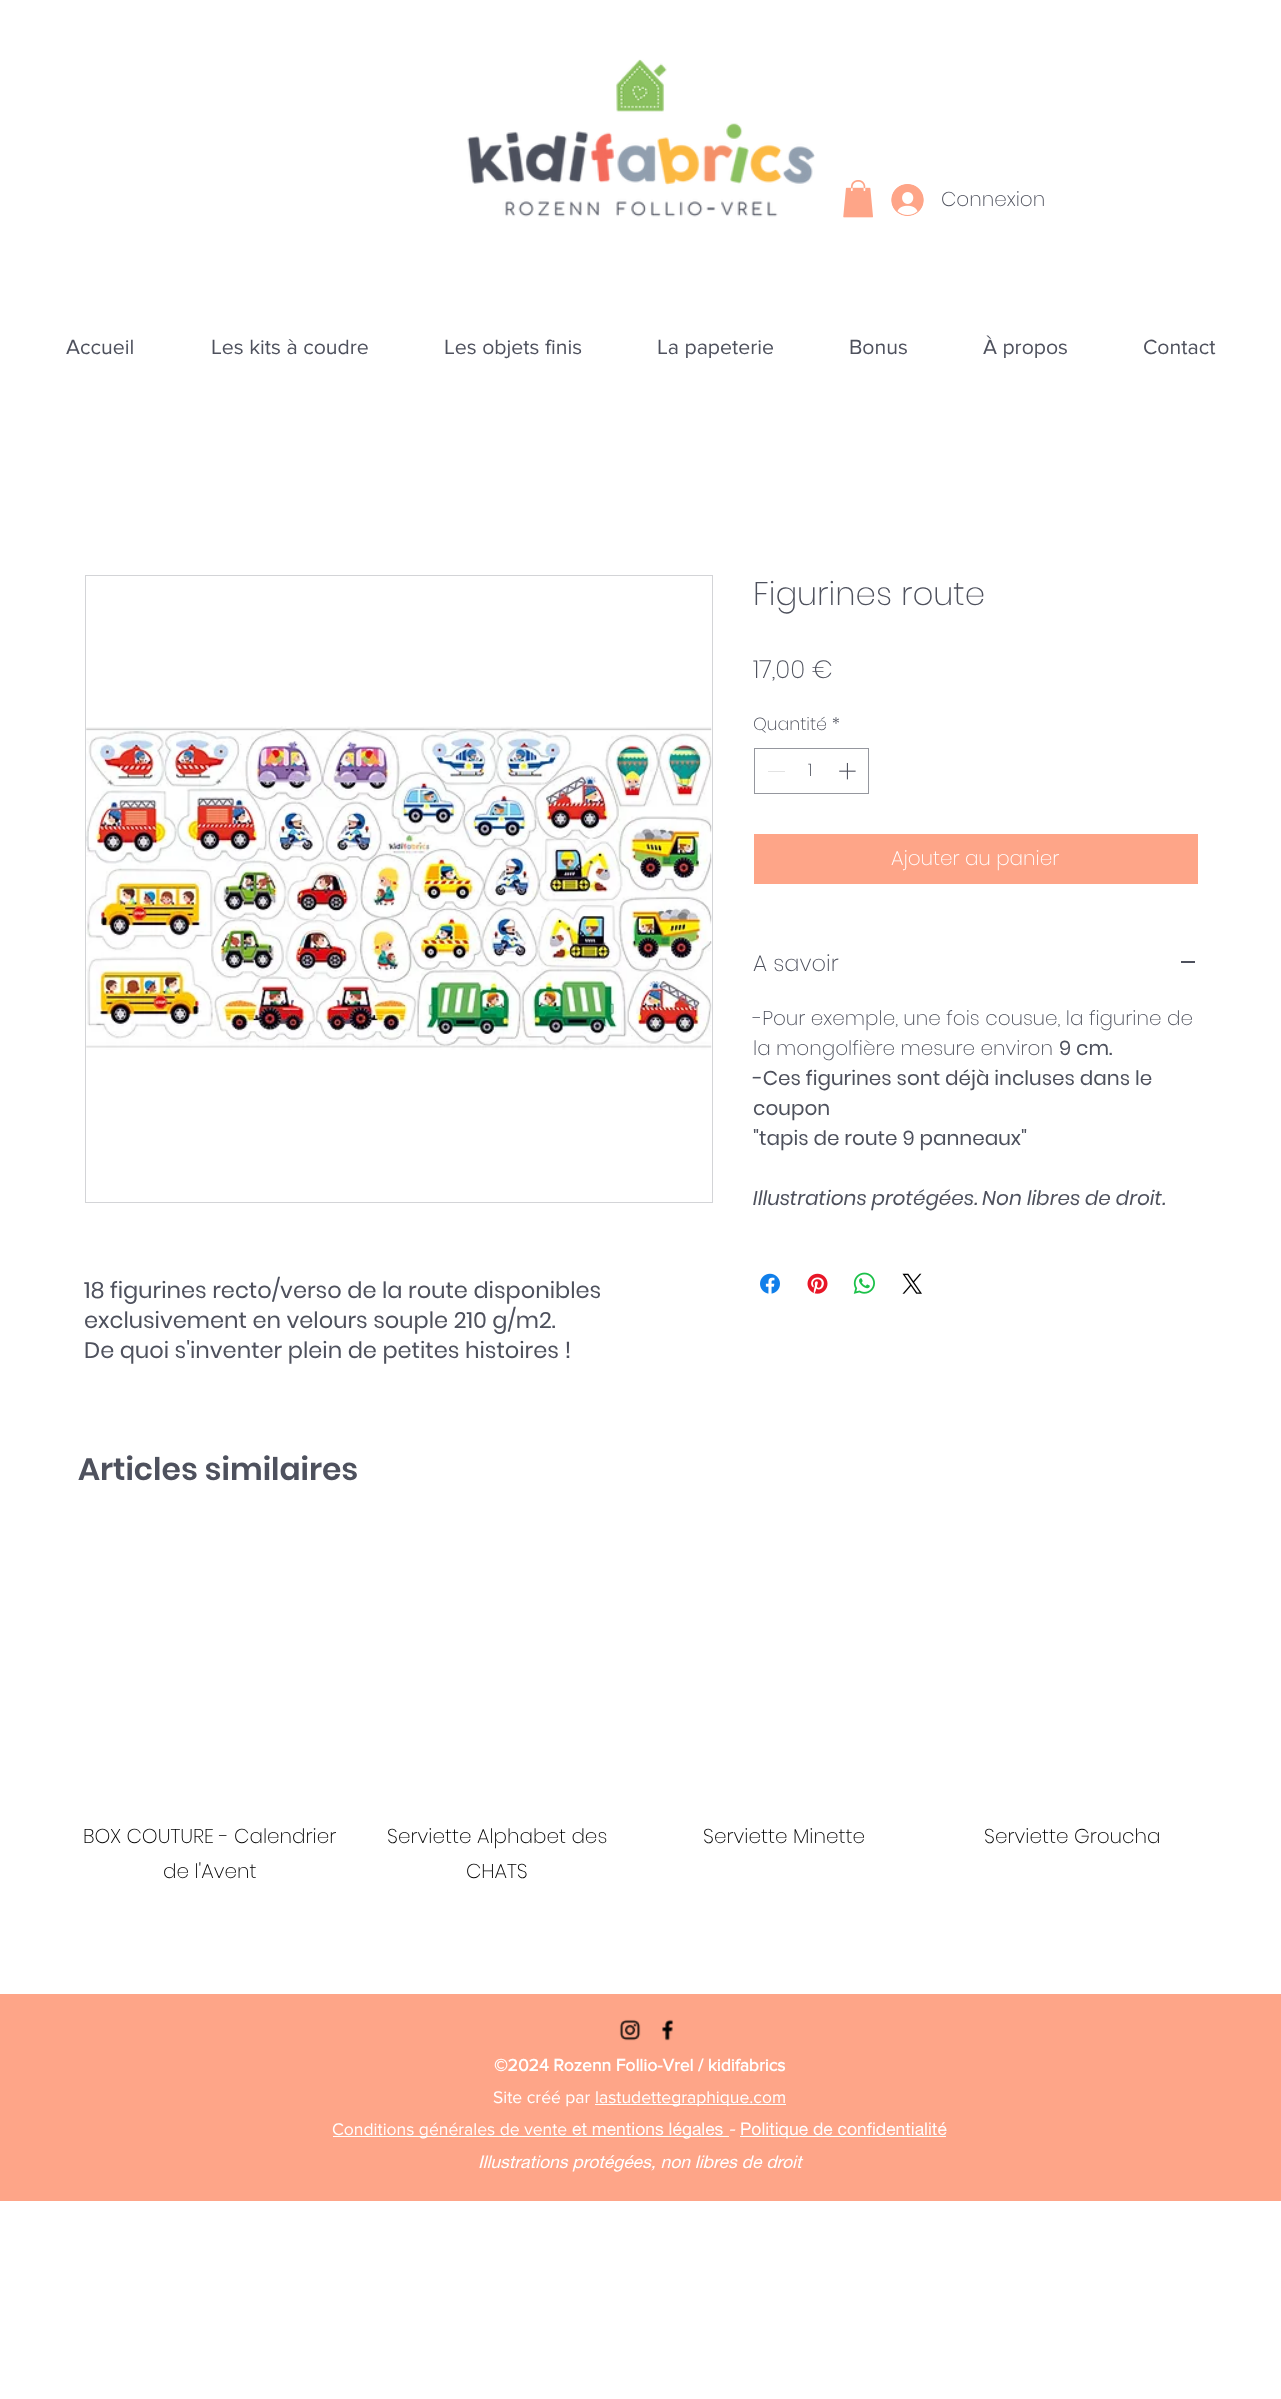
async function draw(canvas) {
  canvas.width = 1281;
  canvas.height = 2399;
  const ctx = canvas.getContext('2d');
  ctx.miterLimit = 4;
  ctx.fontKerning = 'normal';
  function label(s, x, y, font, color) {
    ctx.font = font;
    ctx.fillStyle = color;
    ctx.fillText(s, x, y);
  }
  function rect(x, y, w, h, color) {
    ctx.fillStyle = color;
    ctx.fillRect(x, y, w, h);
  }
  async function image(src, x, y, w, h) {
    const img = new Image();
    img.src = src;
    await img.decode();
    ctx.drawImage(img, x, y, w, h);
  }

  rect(0, 0, 1281, 2399, '#fff');
  await image('assets/img1.png', 467, 59, 348, 158);
  await image('assets/img2.png', 843, 180, 30, 38);
  await image('assets/img3.png', 891, 184, 33, 32);
  label('Connexion', 941, 206, '200 20px Poppins', '#4e515d');
  label('Accueil', 66, 354, '21.25px "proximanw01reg"', '#4e515d');
  label('Les kits à coudre', 211, 354, '21.25px "proximanw01reg"', '#4e515d');
  label('Les objets finis', 444, 354, '21.25px "proximanw01reg"', '#4e515d');
  label('La papeterie', 657, 354, '21.25px "proximanw01reg"', '#4e515d');
  label('Bonus', 849, 354, '21.25px "proximanw01reg"', '#4e515d');
  label('À propos', 983, 354, '21.25px "proximanw01reg"', '#4e515d');
  label('Contact', 1143, 354, '21.25px "proximanw01reg"', '#4e515d');
  label('Figurines route', 753, 605, '200 32.5px Poppins', '#4e515d');
  label('17,00 €', 753, 678, '200 25px Poppins', '#4e515d');
  label('Quantité *', 753, 730, '200 17.5px Poppins', '#4e515d');
  ctx.strokeStyle = '#95979e';
  ctx.strokeRect(754.5, 748.5, 114, 45);
  rect(768, 771, 17, 1, '#e3e3e3');
  label('1', 808, 776, '200 17.5px Poppins', '#4e515d');
  await image('assets/img4.png', 839, 762, 17, 18);
  rect(754, 834, 444, 50, '#fea588');
  label('Ajouter au panier', 891, 865, '200 20px Poppins', '#fff');
  label('A savoir', 753, 971, '200 22.5px Poppins', '#4e515d');
  rect(1181, 961, 14, 2, '#4e515d');
  label('-Pour exemple, une fois cousue, la figurine de', 753, 1025, '200 20px Poppins', '#4e515d');
  label('la mongolfière mesure environ', 753, 1055, '200 20px Poppins', '#4e515d');
  label('9 cm.', 1059, 1055, '20px Poppins', '#4e515d');
  label('-Ces figurines sont déjà incluses dans le', 753, 1085, '20px Poppins', '#4e515d');
  label('coupon', 753, 1115, '20px Poppins', '#4e515d');
  label('"tapis de route 9 panneaux"', 753, 1145, '20px Poppins', '#4e515d');
  label('Illustrations protégées. Non libres de droit.', 753, 1205, 'italic 20px Poppins', '#4e515d');
  await image('assets/img5.png', 760, 1273, 20, 21);
  await image('assets/img6.png', 807, 1273, 21, 21);
  await image('assets/img7.png', 853, 1272, 22, 22);
  await image('assets/img8.png', 902, 1273, 20, 21);
  ctx.strokeStyle = '#d3d4d7';
  ctx.strokeRect(85.5, 575.5, 627, 627);
  await image('assets/img9.png', 86, 726, 626, 324);
  label('18 figurines recto/verso de la route disponibles', 84, 1298, '22.5px Poppins', '#4e515d');
  label('exclusivement en velours souple 210 g/m2.', 84, 1328, '22.5px Poppins', '#4e515d');
  label('De quoi s\'inventer plein de petites histoires !', 84, 1358, '22.5px Poppins', '#4e515d');
  label('Articles similaires', 78, 1480, '600 31.25px Poppins', '#4e515d');
  label('BOX COUTURE - Calendrier', 83, 1843, '200 20px Poppins', '#000');
  label('de l\'Avent', 163, 1878, '200 20px Poppins', '#000');
  label('Serviette Alphabet des', 387, 1843, '200 20px Poppins', '#000');
  label('CHATS', 466, 1878, '200 20px Poppins', '#000');
  label('Serviette Minette', 703, 1843, '200 20px Poppins', '#000');
  label('Serviette Groucha', 984, 1843, '200 20px Poppins', '#000');
  rect(0, 1994, 1281, 207, '#fea588');
  await image('assets/img10.png', 619, 2019, 22, 22);
  await image('assets/img11.png', 662, 2019, 12, 22);
  label('©2024 Rozenn Follio-Vrel / kidifabrics', 494, 2071, 'bold 17.5px "proximanw01reg"', '#fff');
  label('Site créé par', 493, 2103, '17.5px "proximanw01reg"', '#fff');
  rect(595, 2104, 191, 1, '#fff');
  label('lastudettegraphique.com', 595, 2103, '17.5px "proximanw01reg"', '#fff');
  rect(333, 2136, 396, 1, '#fff');
  label('Conditions générales de vente', 332, 2135, '17.5px "proximanw01reg"', '#fff');
  label('et mentions légales', 572, 2135, '17.5px "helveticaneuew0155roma"', '#fff');
  label('-', 728, 2135, 'italic 17.5px "helveticaneuew0155roma"', '#fff');
  rect(740, 2136, 206, 1, '#fff');
  label('Politique de confidentialité', 740, 2135, '17.5px "helveticaneuew0155roma"', '#fff');
  label('Illustrations protégées, non libres de droit', 478, 2168, 'italic 17.5px "helveticaneuew0155roma"', '#fff');
}

draw(document.querySelector('canvas'));
